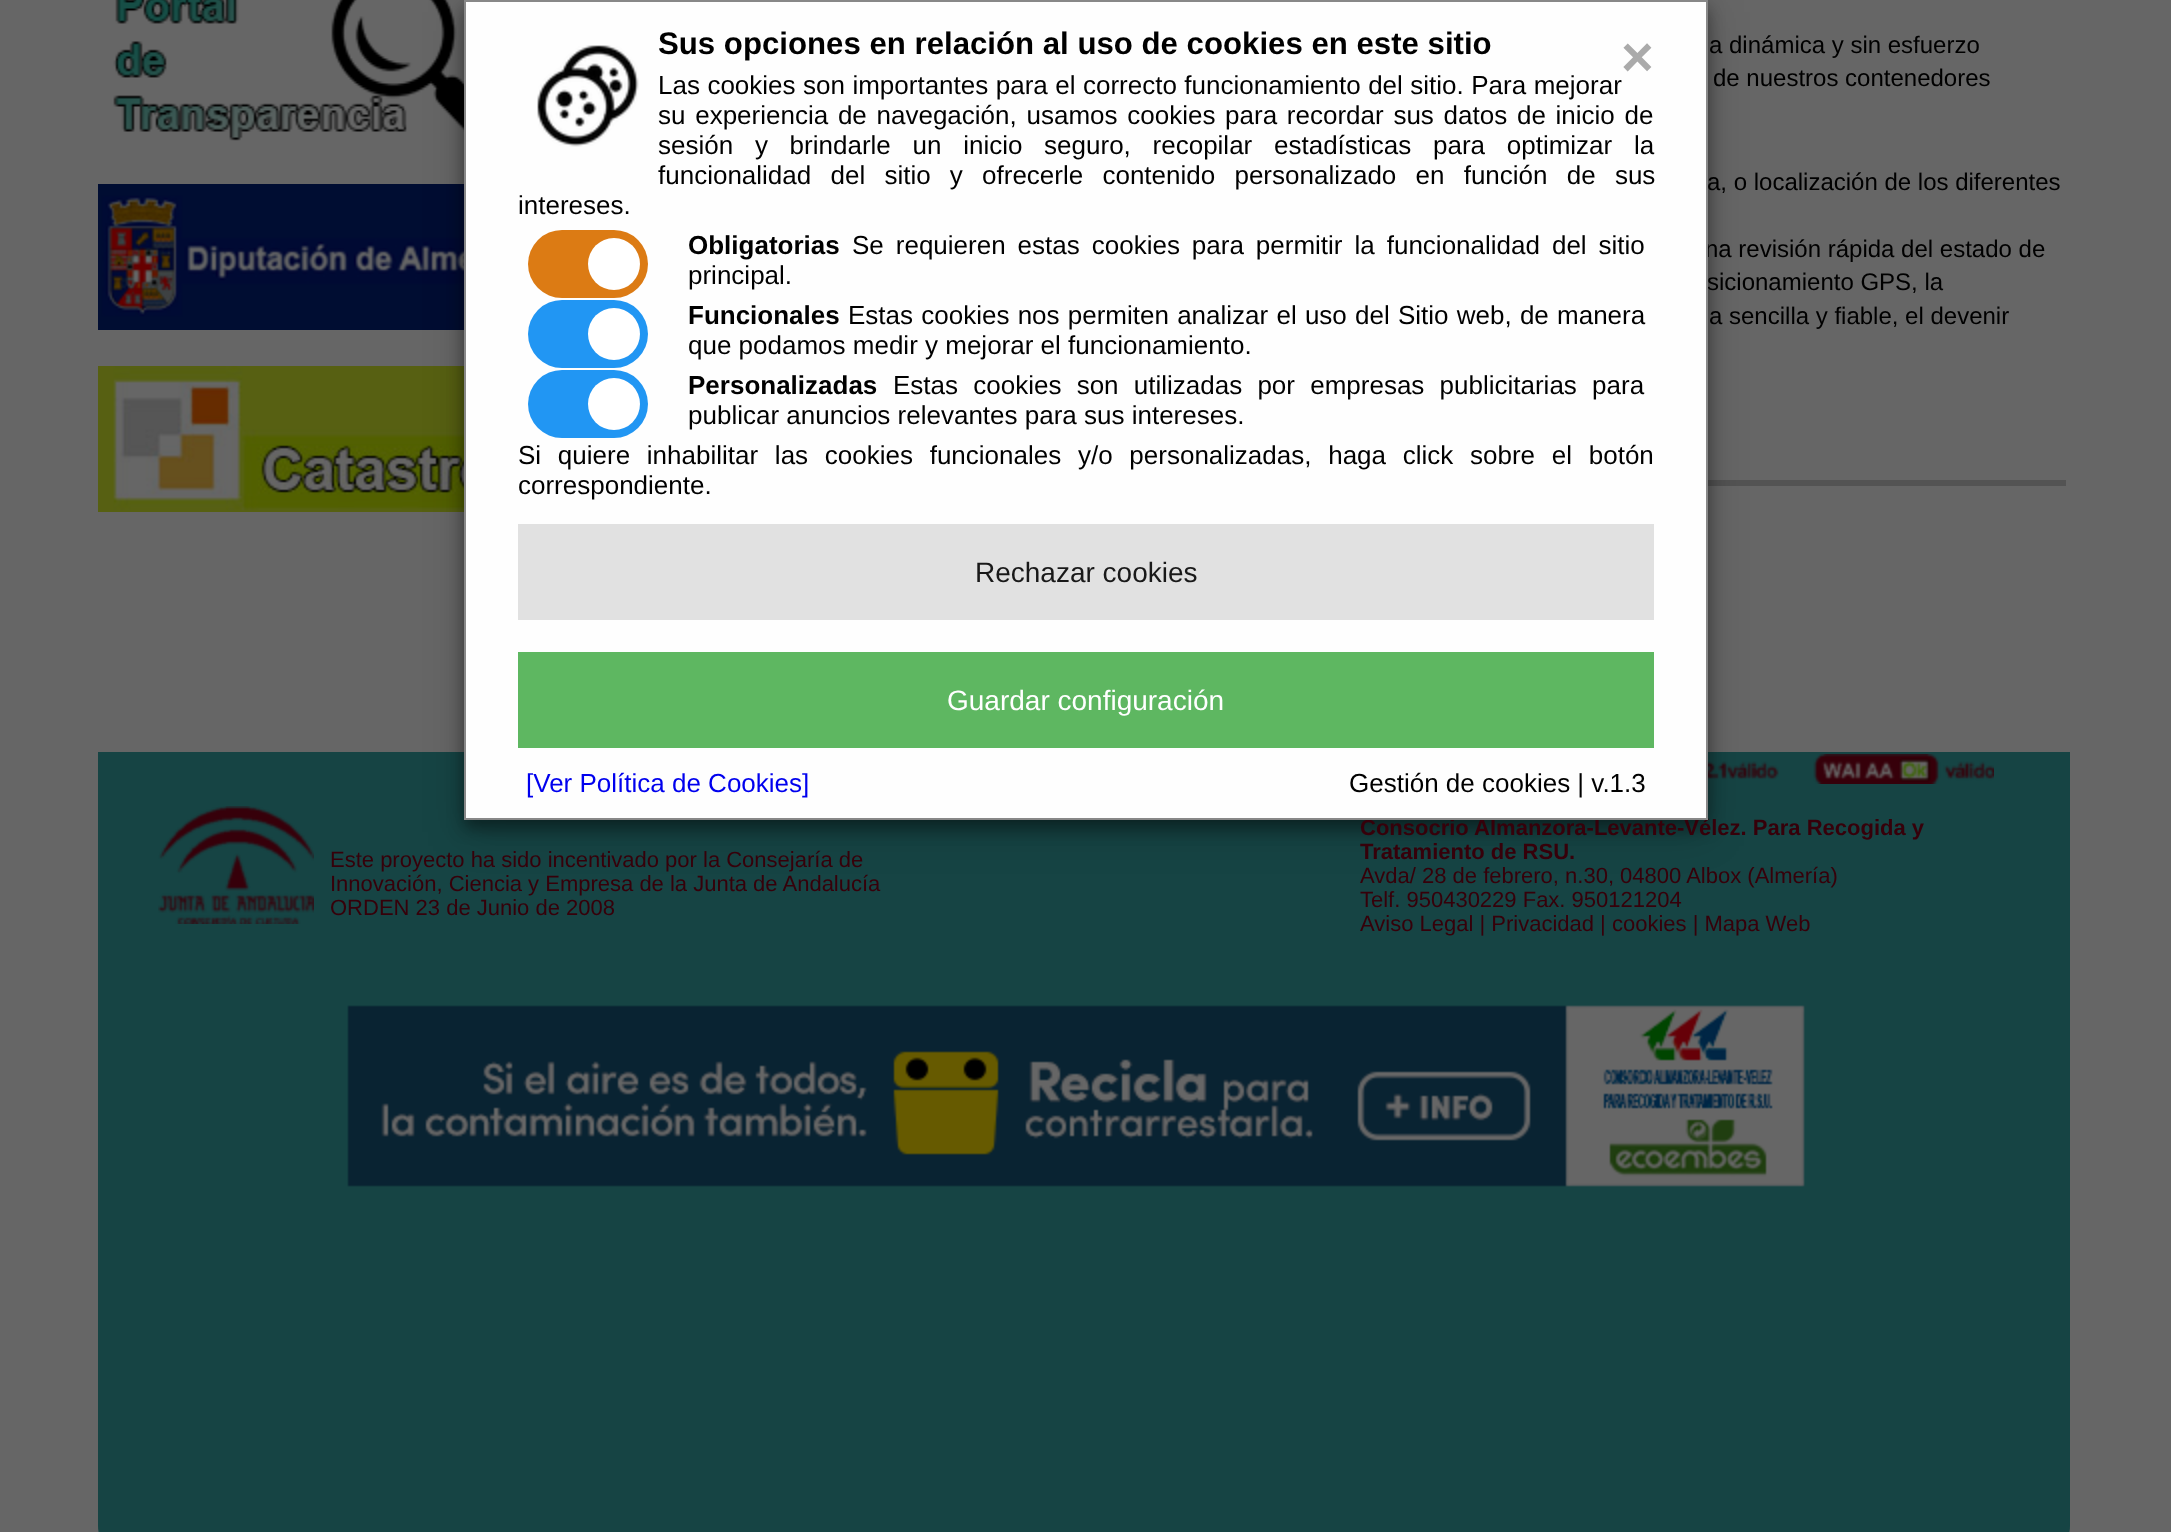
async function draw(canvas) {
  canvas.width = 2171;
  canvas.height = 1532;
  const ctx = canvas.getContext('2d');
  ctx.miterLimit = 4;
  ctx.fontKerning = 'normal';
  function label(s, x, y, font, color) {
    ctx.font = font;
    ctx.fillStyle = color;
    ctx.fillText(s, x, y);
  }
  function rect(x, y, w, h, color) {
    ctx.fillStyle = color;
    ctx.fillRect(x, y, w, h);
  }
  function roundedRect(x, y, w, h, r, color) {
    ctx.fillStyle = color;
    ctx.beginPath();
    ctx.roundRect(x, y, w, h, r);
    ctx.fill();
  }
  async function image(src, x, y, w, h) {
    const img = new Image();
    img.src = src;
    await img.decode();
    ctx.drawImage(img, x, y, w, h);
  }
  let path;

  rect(0, 0, 2171, 1532, '#666');
  await image('assets/img2.png', 113, 0, 351, 141);
  await image('assets/img3.png', 98, 184, 366, 146);
  await image('assets/img4.png', 98, 366, 366, 146);
  rect(1708, 480, 358, 6, '#535353');
  ctx.fillStyle = '#164444';
  path = new Path2D('M98 752H2070V1526C2070 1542.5 2056.5 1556 2040 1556H128C111.5 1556 98 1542.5 98 1526Z');
  ctx.fill(path);
  await image('assets/img6.png', 1708, 761, 71, 19);
  ctx.fillStyle = '#00000030';
  ctx.filter = 'blur(20px)';
  ctx.beginPath();
  ctx.rect(464, 12, 1244, 820);
  ctx.fill();
  ctx.filter = 'none';
  ctx.fillStyle = '#00000066';
  ctx.filter = 'blur(8px)';
  ctx.beginPath();
  ctx.rect(464, 8, 1244, 820);
  ctx.fill();
  ctx.filter = 'none';
  label('a, o localización de los diferentes', 1707, 190, '24px Liberation Sans', '#000');
  label('na revisión rápida del estado de', 1705, 257, '24px Liberation Sans', '#000');
  label('sicionamiento GPS, la', 1707, 290, '24px Liberation Sans', '#000');
  label('Consocrio Almanzora-Levante-Vélez. Para Recogida y', 1360, 835, 'bold 22px Liberation Sans', '#36000a');
  ctx.fillStyle = '#fefefe';
  ctx.beginPath();
  ctx.rect(465, 1, 1242, 818);
  ctx.fill();
  ctx.strokeStyle = '#888';
  ctx.lineWidth = 2;
  ctx.stroke();
  await image('assets/img1.png', 537, 45, 102, 102);
  label('Sus opciones en relación al uso de cookies en este sitio', 658, 54, 'bold 31.2px Liberation Sans', '#000');
  label('×', 1621, 76, 'bold 56px Liberation Sans', '#aaa');
  ctx.wordSpacing = '0.25px';
  label('Las cookies son importantes para el correcto funcionamiento del sitio. Para mejorar', 658, 94, '26px Liberation Sans', '#000');
  ctx.wordSpacing = '2.5px';
  label('su experiencia de navegación, usamos cookies para recordar sus datos de inicio de', 658, 124, '26px Liberation Sans', '#000');
  ctx.wordSpacing = '14.5px';
  label('sesión y brindarle un inicio seguro, recopilar estadísticas para optimizar la', 658, 154, '26px Liberation Sans', '#000');
  ctx.wordSpacing = '12px';
  label('funcionalidad del sitio y ofrecerle contenido personalizado en función de sus', 658, 184, '26px Liberation Sans', '#000');
  ctx.wordSpacing = '0px';
  label('intereses.', 518, 214, '26px Liberation Sans', '#000');
  roundedRect(528, 230, 120, 68, 34, '#dc7b14');
  ctx.fillStyle = '#fff';
  ctx.beginPath();
  ctx.arc(614, 264, 26, 0, 2 * Math.PI);
  ctx.fill();
  label('Obligatorias', 688, 254, 'bold 26px Liberation Sans', '#000');
  ctx.wordSpacing = '4.75px';
  label('Se requieren estas cookies para permitir la funcionalidad del sitio', 852, 254, '26px Liberation Sans', '#000');
  ctx.wordSpacing = '0px';
  label('principal.', 688, 284, '26px Liberation Sans', '#000');
  roundedRect(528, 300, 120, 68, 34, '#2196f3');
  ctx.fillStyle = '#fff';
  ctx.beginPath();
  ctx.arc(614, 334, 26, 0, 2 * Math.PI);
  ctx.fill();
  label('Funcionales', 688, 324, 'bold 26px Liberation Sans', '#000');
  ctx.wordSpacing = '1px';
  label('Estas cookies nos permiten analizar el uso del Sitio web, de manera', 848, 324, '26px Liberation Sans', '#000');
  ctx.wordSpacing = '0px';
  label('que podamos medir y mejorar el funcionamiento.', 688, 354, '26px Liberation Sans', '#000');
  roundedRect(528, 370, 120, 68, 34, '#2196f3');
  ctx.fillStyle = '#fff';
  ctx.beginPath();
  ctx.arc(614, 404, 26, 0, 2 * Math.PI);
  ctx.fill();
  label('Personalizadas', 688, 394, 'bold 26px Liberation Sans', '#000');
  ctx.wordSpacing = '8px';
  label('Estas cookies son utilizadas por empresas publicitarias para', 893, 394, '26px Liberation Sans', '#000');
  ctx.wordSpacing = '0px';
  label('publicar anuncios relevantes para sus intereses.', 688, 424, '26px Liberation Sans', '#000');
  ctx.wordSpacing = '9.5px';
  label('Si quiere inhabilitar las cookies funcionales y/o personalizadas, haga click sobre el botón', 518, 464, '26px Liberation Sans', '#000');
  ctx.wordSpacing = '0px';
  label('correspondiente.', 518, 494, '26px Liberation Sans', '#000');
  rect(518, 524, 1136, 96, '#e1e1e1');
  label('Rechazar cookies', 975, 582, '28px Liberation Sans', '#191919');
  rect(518, 652, 1136, 96, '#5eb761');
  label('Guardar configuración', 947, 710, '28px Liberation Sans', '#fff');
  label('[Ver Política de Cookies]', 526, 792, '26px Liberation Sans', '#00e');
  label('Gestión de cookies | v.1.3', 1349, 792, '26px Liberation Sans', '#000');
  label('a dinámica y sin esfuerzo', 1709, 53, '24px Liberation Sans', '#000');
  label('de nuestros contenedores', 1713, 86, '24px Liberation Sans', '#000');
  label('a sencilla y fiable, el devenir', 1709, 324, '24px Liberation Sans', '#000');
  await image('assets/img5.png', 158, 806, 156, 118);
  label('Este proyecto ha sido incentivado por la Consejaría de', 330, 867, '22px Liberation Sans', '#36000a');
  label('Innovación, Ciencia y Empresa de la Junta de Andalucía', 330, 891, '22px Liberation Sans', '#36000a');
  label('ORDEN 23 de Junio de 2008', 330, 915, '22px Liberation Sans', '#36000a');
  await image('assets/img7.png', 1813, 754, 181, 30);
  label('Tratamiento de RSU.', 1360, 859, 'bold 22px Liberation Sans', '#36000a');
  label('Avda/ 28 de febrero, n.30, 04800 Albox (Almería)', 1360, 883, '22px Liberation Sans', '#36000a');
  label('Telf. 950430229 Fax. 950121204', 1360, 907, '22px Liberation Sans', '#36000a');
  label('Aviso Legal | Privacidad | cookies | Mapa Web', 1360, 931, '22px Liberation Sans', '#36000a');
  await image('assets/img8.png', 347, 1005, 1458, 182);
}

draw(document.querySelector('canvas'));
